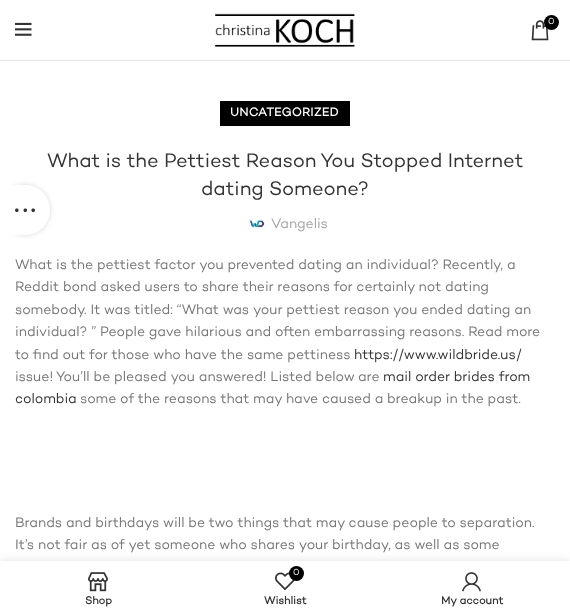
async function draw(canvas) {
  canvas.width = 570;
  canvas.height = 616;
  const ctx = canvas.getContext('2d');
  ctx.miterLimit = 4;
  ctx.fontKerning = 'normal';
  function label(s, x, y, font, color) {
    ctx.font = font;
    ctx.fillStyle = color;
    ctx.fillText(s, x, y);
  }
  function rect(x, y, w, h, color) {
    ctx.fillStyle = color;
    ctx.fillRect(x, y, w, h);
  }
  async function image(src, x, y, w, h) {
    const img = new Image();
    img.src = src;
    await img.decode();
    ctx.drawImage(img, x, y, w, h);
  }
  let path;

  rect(0, 0, 570, 616, '#fff');
  rect(0, 60, 570, 1, '#e6e6e6');
  await image('assets/img1.png', 215, 13, 140, 34);
  await image('assets/img2.png', 531, 20, 18, 21);
  ctx.fillStyle = '#000';
  ctx.beginPath();
  ctx.arc(551.5, 22.5, 7.5, 0, 2 * Math.PI);
  ctx.fill();
  label('0', 548, 24, '9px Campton', '#fff');
  await image('assets/img3.png', 15, 22, 17, 14);
  rect(220, 101, 130, 25, '#000');
  ctx.letterSpacing = '0.25px';
  label('UNCATEGORIZED', 230, 116, 'bold 12px Campton', '#fff');
  ctx.letterSpacing = '0px';
  label('What is the Pettiest Reason You Stopped Internet', 47, 167, '20px Campton', '#333');
  label('dating Someone?', 201, 195, '20px Campton', '#333');
  await image('assets/img4.png', 248, 216, 18, 15);
  label('Vangelis', 271, 228, '14px Campton', '#a4a4a4');
  label('What is the pettiest factor you prevented dating an individual? Recently, a', 15, 269, '14px Campton', '#777');
  label('Reddit bond asked users to share their reasons for certainly not dating', 15, 291, '14px Campton', '#777');
  label('somebody. It was titled: “What was your pettiest reason you ended dating an', 15, 314, '14px Campton', '#777');
  label('individual? ” People gave hilarious and often embarrassing reasons. Read more', 15, 336, '14px Campton', '#777');
  label('to find out for those who have the same pettiness', 15, 359, '14px Campton', '#777');
  label('https://www.wildbride.us/', 354, 359, '14px Campton', '#333');
  label('issue! You’ll be pleased you answered! Listed below are', 15, 381, '14px Campton', '#777');
  label('mail order brides from', 383, 381, '14px Campton', '#333');
  label('colombia', 15, 403, '14px Campton', '#333');
  label('some of the reasons that may have caused a breakup in the past.', 80, 403, '14px Campton', '#777');
  label('Brands and birthdays will be two things that may cause people to separation.', 15, 527, '14px Campton', '#777');
  label('It’s not fair as of yet someone who shares your birthday, as well as some', 15, 549, '14px Campton', '#777');
  ctx.save();
  path = new Path2D('M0 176H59V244H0ZM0 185H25C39 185 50 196 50 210C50 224 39 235 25 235H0Z');
  ctx.clip(path, 'evenodd');
  ctx.fillStyle = '#0000002b';
  ctx.filter = 'blur(2.5px)';
  ctx.beginPath();
  ctx.roundRect(0, 185, 50, 50, 25);
  ctx.fill();
  ctx.filter = 'none';
  ctx.restore();
  ctx.fillStyle = '#ffffffe6';
  ctx.beginPath();
  ctx.roundRect(0, 185, 50, 50, [0, 25, 25, 0]);
  ctx.fill();
  await image('assets/img5.png', 15, 208, 20, 5);
  ctx.fillStyle = '#0000001f';
  ctx.filter = 'blur(4.5px)';
  ctx.beginPath();
  ctx.rect(0, 561, 570, 55);
  ctx.fill();
  ctx.filter = 'none';
  rect(0, 561, 570, 55, '#fff');
  await image('assets/img6.png', 88, 572, 20, 20);
  label('Shop', 85, 604, 'bold 11px Campton', '#333');
  await image('assets/img7.png', 275, 572, 20, 18);
  ctx.fillStyle = '#000';
  ctx.beginPath();
  ctx.arc(296.5, 573.5, 7.5, 0, 2 * Math.PI);
  ctx.fill();
  label('0', 293, 575, '9px Campton', '#fff');
  label('Wishlist', 264, 604, 'bold 11px Campton', '#333');
  await image('assets/img8.png', 462, 572, 19, 20);
  label('My account', 441, 604, 'bold 11px Campton', '#333');
}

draw(document.querySelector('canvas'));
